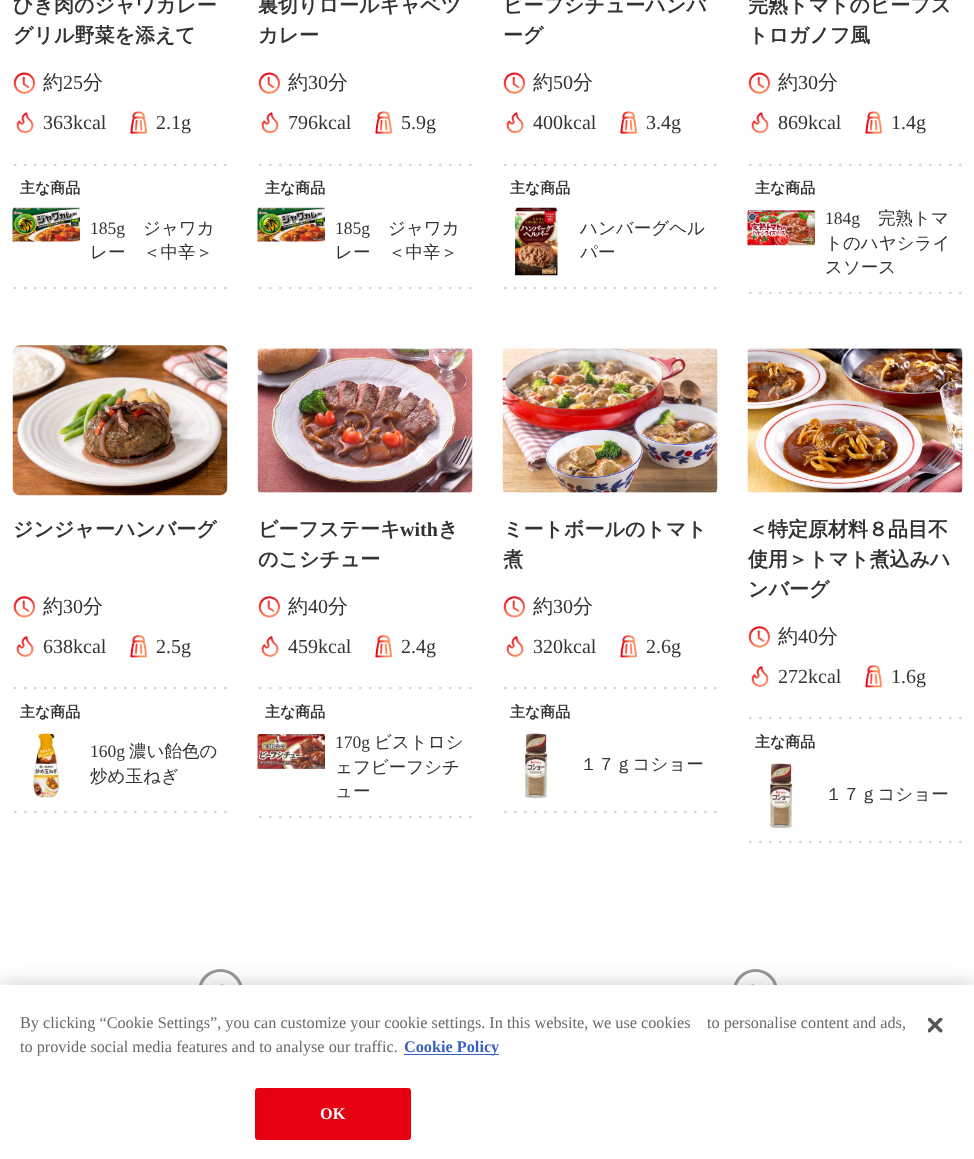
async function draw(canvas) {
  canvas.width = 974;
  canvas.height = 1159;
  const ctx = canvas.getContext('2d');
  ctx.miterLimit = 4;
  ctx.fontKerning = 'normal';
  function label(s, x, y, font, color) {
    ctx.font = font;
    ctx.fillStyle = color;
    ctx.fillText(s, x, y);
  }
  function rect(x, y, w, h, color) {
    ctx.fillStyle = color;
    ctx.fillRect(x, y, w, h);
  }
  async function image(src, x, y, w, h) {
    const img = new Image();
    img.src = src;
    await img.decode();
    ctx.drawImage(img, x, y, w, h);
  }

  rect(0, 0, 974, 1159, '#fff');
  label('ひき肉のジャワカレー', 13, 12, 'bold 20px WenQuanYi Zen Hei', '#333');
  label('グリル野菜を添えて', 13, 42, 'bold 20px WenQuanYi Zen Hei', '#333');
  await image('assets/img1.png', 13, 72, 22, 22);
  label('約', 43, 89, '500 20px WenQuanYi Zen Hei', '#333');
  label('25', 63, 89, '20px Liberation Serif', '#333');
  label('分', 83, 89, '500 20px WenQuanYi Zen Hei', '#333');
  await image('assets/img2.png', 16, 112, 18, 22);
  label('363kcal', 43, 129, '20px Liberation Serif', '#333');
  await image('assets/img3.png', 130, 111, 17, 23);
  label('2.1g', 156, 129, '20px Liberation Serif', '#333');
  await image('assets/img4.png', 14, 163, 213, 3);
  label('主な商品', 20, 193, 'bold 15px WenQuanYi Zen Hei', '#333');
  await image('assets/img5.png', 12, 207, 68, 35);
  label('185g', 90, 234, '17.5px Liberation Serif', '#333');
  label('ジャワカ', 143, 234, '500 17.5px WenQuanYi Zen Hei', '#333');
  label('レー　＜中辛＞', 90, 258, '500 17.5px WenQuanYi Zen Hei', '#333');
  await image('assets/img6.png', 14, 287, 213, 3);
  label('裏切りロールキャベツ', 258, 12, 'bold 20px WenQuanYi Zen Hei', '#333');
  label('カレー', 258, 42, 'bold 20px WenQuanYi Zen Hei', '#333');
  await image('assets/img1.png', 258, 72, 22, 22);
  label('約', 288, 89, '500 20px WenQuanYi Zen Hei', '#333');
  label('30', 308, 89, '20px Liberation Serif', '#333');
  label('分', 328, 89, '500 20px WenQuanYi Zen Hei', '#333');
  await image('assets/img2.png', 261, 112, 18, 22);
  label('796kcal', 288, 129, '20px Liberation Serif', '#333');
  await image('assets/img3.png', 375, 111, 17, 23);
  label('5.9g', 401, 129, '20px Liberation Serif', '#333');
  await image('assets/img4.png', 259, 163, 213, 3);
  label('主な商品', 265, 193, 'bold 15px WenQuanYi Zen Hei', '#333');
  await image('assets/img7.png', 257, 207, 68, 35);
  label('185g', 335, 234, '17.5px Liberation Serif', '#333');
  label('ジャワカ', 388, 234, '500 17.5px WenQuanYi Zen Hei', '#333');
  label('レー　＜中辛＞', 335, 258, '500 17.5px WenQuanYi Zen Hei', '#333');
  await image('assets/img6.png', 259, 287, 213, 3);
  label('ビーフシチューハンバ', 503, 12, 'bold 20px WenQuanYi Zen Hei', '#333');
  label('ーグ', 503, 42, 'bold 20px WenQuanYi Zen Hei', '#333');
  await image('assets/img1.png', 503, 72, 22, 22);
  label('約', 533, 89, '500 20px WenQuanYi Zen Hei', '#333');
  label('50', 553, 89, '20px Liberation Serif', '#333');
  label('分', 573, 89, '500 20px WenQuanYi Zen Hei', '#333');
  await image('assets/img2.png', 506, 112, 18, 22);
  label('400kcal', 533, 129, '20px Liberation Serif', '#333');
  await image('assets/img3.png', 620, 111, 17, 23);
  label('3.4g', 646, 129, '20px Liberation Serif', '#333');
  await image('assets/img4.png', 504, 163, 213, 3);
  label('主な商品', 510, 193, 'bold 15px WenQuanYi Zen Hei', '#333');
  await image('assets/img8.png', 515, 207, 43, 69);
  label('ハンバーグヘル', 580, 234, '500 17.5px WenQuanYi Zen Hei', '#333');
  label('パー', 580, 258, '500 17.5px WenQuanYi Zen Hei', '#333');
  await image('assets/img6.png', 504, 287, 213, 3);
  label('完熟トマトのビーフス', 748, 12, 'bold 20px WenQuanYi Zen Hei', '#333');
  label('トロガノフ風', 748, 42, 'bold 20px WenQuanYi Zen Hei', '#333');
  await image('assets/img1.png', 748, 72, 22, 22);
  label('約', 778, 89, '500 20px WenQuanYi Zen Hei', '#333');
  label('30', 798, 89, '20px Liberation Serif', '#333');
  label('分', 818, 89, '500 20px WenQuanYi Zen Hei', '#333');
  await image('assets/img2.png', 751, 112, 18, 22);
  label('869kcal', 778, 129, '20px Liberation Serif', '#333');
  await image('assets/img3.png', 865, 111, 17, 23);
  label('1.4g', 891, 129, '20px Liberation Serif', '#333');
  await image('assets/img4.png', 749, 163, 213, 3);
  label('主な商品', 755, 193, 'bold 15px WenQuanYi Zen Hei', '#333');
  await image('assets/img9.png', 747, 210, 68, 36);
  label('184g', 825, 224, '17.5px Liberation Serif', '#333');
  label('完熟トマ', 878, 224, '500 17.5px WenQuanYi Zen Hei', '#333');
  label('トのハヤシライ', 825, 249, '500 17.5px WenQuanYi Zen Hei', '#333');
  label('スソース', 825, 273, '500 17.5px WenQuanYi Zen Hei', '#333');
  await image('assets/img6.png', 749, 292, 213, 3);
  await image('assets/img10.png', 12, 345, 216, 151);
  label('ジンジャーハンバーグ', 13, 536, 'bold 20px WenQuanYi Zen Hei', '#333');
  await image('assets/img11.png', 13, 596, 22, 22);
  label('約', 43, 613, '500 20px WenQuanYi Zen Hei', '#333');
  label('30', 63, 613, '20px Liberation Serif', '#333');
  label('分', 83, 613, '500 20px WenQuanYi Zen Hei', '#333');
  await image('assets/img12.png', 16, 636, 18, 21);
  label('638kcal', 43, 653, '20px Liberation Serif', '#333');
  await image('assets/img13.png', 130, 635, 17, 23);
  label('2.5g', 156, 653, '20px Liberation Serif', '#333');
  await image('assets/img6.png', 14, 687, 213, 3);
  label('主な商品', 20, 717, 'bold 15px WenQuanYi Zen Hei', '#333');
  await image('assets/img14.png', 33, 733, 27, 65);
  label('160g', 90, 757, '17.5px Liberation Serif', '#333');
  label('濃い飴色の', 129, 757, '500 17.5px WenQuanYi Zen Hei', '#333');
  label('炒め玉ねぎ', 90, 782, '500 17.5px WenQuanYi Zen Hei', '#333');
  await image('assets/img15.png', 14, 810, 213, 4);
  await image('assets/img16.png', 257, 348, 216, 145);
  label('ビーフステーキ', 258, 536, 'bold 20px WenQuanYi Zen Hei', '#333');
  label('with', 400, 536, 'bold 20px Liberation Serif', '#333');
  label('き', 438, 536, 'bold 20px WenQuanYi Zen Hei', '#333');
  label('のこシチュー', 258, 566, 'bold 20px WenQuanYi Zen Hei', '#333');
  await image('assets/img11.png', 258, 596, 22, 22);
  label('約', 288, 613, '500 20px WenQuanYi Zen Hei', '#333');
  label('40', 308, 613, '20px Liberation Serif', '#333');
  label('分', 328, 613, '500 20px WenQuanYi Zen Hei', '#333');
  await image('assets/img12.png', 261, 636, 18, 21);
  label('459kcal', 288, 653, '20px Liberation Serif', '#333');
  await image('assets/img13.png', 375, 635, 17, 23);
  label('2.4g', 401, 653, '20px Liberation Serif', '#333');
  await image('assets/img6.png', 259, 687, 213, 3);
  label('主な商品', 265, 717, 'bold 15px WenQuanYi Zen Hei', '#333');
  await image('assets/img17.png', 257, 734, 68, 35);
  label('170g', 335, 748, '17.5px Liberation Serif', '#333');
  label('ビストロシ', 374, 748, '500 17.5px WenQuanYi Zen Hei', '#333');
  label('ェフビーフシチ', 335, 773, '500 17.5px WenQuanYi Zen Hei', '#333');
  label('ュー', 335, 797, '500 17.5px WenQuanYi Zen Hei', '#333');
  await image('assets/img15.png', 259, 815, 213, 4);
  await image('assets/img18.png', 502, 348, 216, 145);
  label('ミートボールのトマト', 503, 536, 'bold 20px WenQuanYi Zen Hei', '#333');
  label('煮', 503, 566, 'bold 20px WenQuanYi Zen Hei', '#333');
  await image('assets/img11.png', 503, 596, 22, 22);
  label('約', 533, 613, '500 20px WenQuanYi Zen Hei', '#333');
  label('30', 553, 613, '20px Liberation Serif', '#333');
  label('分', 573, 613, '500 20px WenQuanYi Zen Hei', '#333');
  await image('assets/img12.png', 506, 636, 18, 21);
  label('320kcal', 533, 653, '20px Liberation Serif', '#333');
  await image('assets/img13.png', 620, 635, 17, 23);
  label('2.6g', 646, 653, '20px Liberation Serif', '#333');
  await image('assets/img6.png', 504, 687, 213, 3);
  label('主な商品', 510, 717, 'bold 15px WenQuanYi Zen Hei', '#333');
  await image('assets/img19.png', 525, 733, 23, 66);
  label('１７ｇコショー', 580, 770, '500 17.5px WenQuanYi Zen Hei', '#333');
  await image('assets/img15.png', 504, 810, 213, 4);
  await image('assets/img20.png', 747, 348, 216, 145);
  label('＜特定原材料８品目不', 748, 536, 'bold 20px WenQuanYi Zen Hei', '#333');
  label('使用＞トマト煮込みハ', 748, 566, 'bold 20px WenQuanYi Zen Hei', '#333');
  label('ンバーグ', 748, 596, 'bold 20px WenQuanYi Zen Hei', '#333');
  await image('assets/img11.png', 748, 626, 22, 22);
  label('約', 778, 643, '500 20px WenQuanYi Zen Hei', '#333');
  label('40', 798, 643, '20px Liberation Serif', '#333');
  label('分', 818, 643, '500 20px WenQuanYi Zen Hei', '#333');
  await image('assets/img12.png', 751, 666, 18, 21);
  label('272kcal', 778, 683, '20px Liberation Serif', '#333');
  await image('assets/img13.png', 865, 665, 17, 23);
  label('1.6g', 891, 683, '20px Liberation Serif', '#333');
  await image('assets/img6.png', 749, 717, 213, 3);
  label('主な商品', 755, 747, 'bold 15px WenQuanYi Zen Hei', '#333');
  await image('assets/img21.png', 770, 763, 23, 66);
  label('１７ｇコショー', 825, 800, '500 17.5px WenQuanYi Zen Hei', '#333');
  await image('assets/img15.png', 749, 840, 213, 4);
  ctx.beginPath();
  ctx.arc(220.5, 991.5, 21, 0, 2 * Math.PI);
  ctx.strokeStyle = '#999';
  ctx.lineWidth = 3;
  ctx.stroke();
  await image('assets/img22.png', 220, 984, 4, 1);
  ctx.beginPath();
  ctx.arc(755.5, 991.5, 21, 0, 2 * Math.PI);
  ctx.stroke();
  await image('assets/img23.png', 751, 984, 4, 1);
  ctx.fillStyle = '#00000033';
  ctx.filter = 'blur(11px)';
  ctx.beginPath();
  ctx.rect(0, 985, 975, 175);
  ctx.fill();
  ctx.filter = 'none';
  rect(0, 985, 974, 174, '#fff');
  label('By clicking “Cookie Settings”, you can customize your cookie settings. In this website, we use cookies', 20, 1028, '16.25px Liberation Serif', '#696969');
  label('to personalise content and ads,', 707, 1028, '16.25px Liberation Serif', '#696969');
  label('to provide social media features and to analyse our traffic.', 20, 1052, '16.25px Liberation Serif', '#696969');
  rect(404, 1054, 95, 1, '#3860be');
  label('Cookie Policy', 404, 1052, 'bold 16.25px Liberation Serif', '#3860be');
  ctx.fillStyle = '#e60012';
  ctx.beginPath();
  ctx.roundRect(255.5, 1088.5, 155, 51, 2);
  ctx.fill();
  ctx.strokeStyle = '#e60012';
  ctx.lineWidth = 1;
  ctx.stroke();
  label('OK', 320, 1119, 'bold 16.25px Liberation Serif', '#fff');
  await image('assets/img24.png', 928, 1018, 15, 15);
}

draw(document.querySelector('canvas'));
